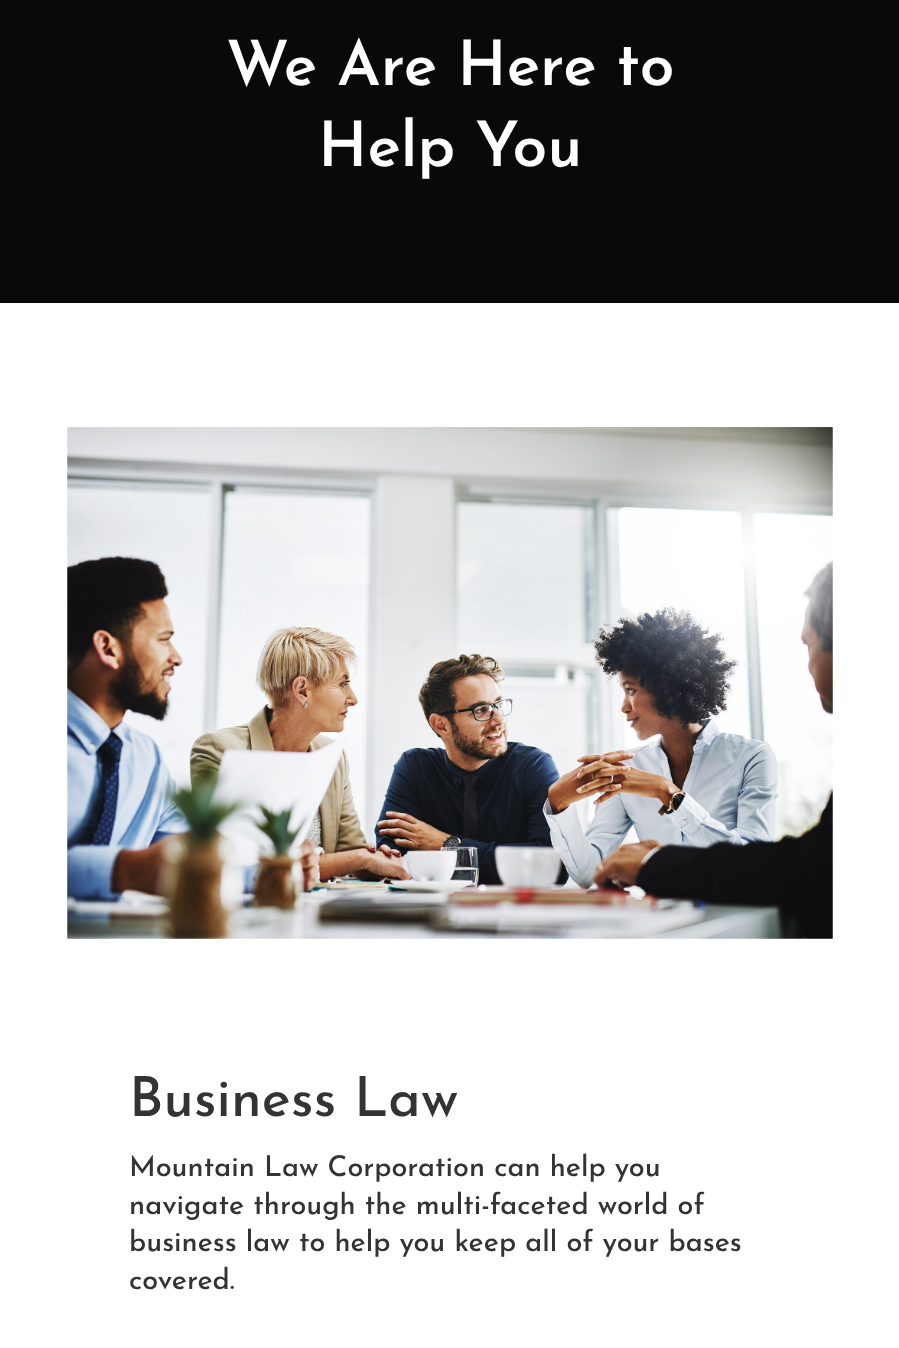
async function draw(canvas) {
  canvas.width = 899;
  canvas.height = 1348;
  const ctx = canvas.getContext('2d');
  ctx.miterLimit = 4;
  ctx.fontKerning = 'normal';
  function label(s, x, y, font, color) {
    ctx.font = font;
    ctx.fillStyle = color;
    ctx.fillText(s, x, y);
  }
  function rect(x, y, w, h, color) {
    ctx.fillStyle = color;
    ctx.fillRect(x, y, w, h);
  }
  async function image(src, x, y, w, h) {
    const img = new Image();
    img.src = src;
    await img.decode();
    ctx.drawImage(img, x, y, w, h);
  }

  rect(0, 0, 899, 1348, '#fff');
  rect(0, 0, 899, 303, '#090909');
  label('We Are Here to', 226, 85, '600 62.5px Josefin Sans', '#fff');
  label('Help You', 318, 166, '600 62.5px Josefin Sans', '#fff');
  await image('assets/img1.png', 67, 427, 766, 512);
  await image('assets/img2.png', 67, 427, 766, 512);
  label('Business Law', 129, 1116, '500 55px Josefin Sans', '#333');
  label('Mountain Law Corporation can help you', 129, 1176, '500 28.75px Josefin Sans', '#333');
  label('navigate through the multi-faceted world of', 129, 1214, '500 28.75px Josefin Sans', '#333');
  label('business law to help you keep all of your bases', 129, 1251, '500 28.75px Josefin Sans', '#333');
  label('covered.', 129, 1289, '500 28.75px Josefin Sans', '#333');
}

draw(document.querySelector('canvas'));
